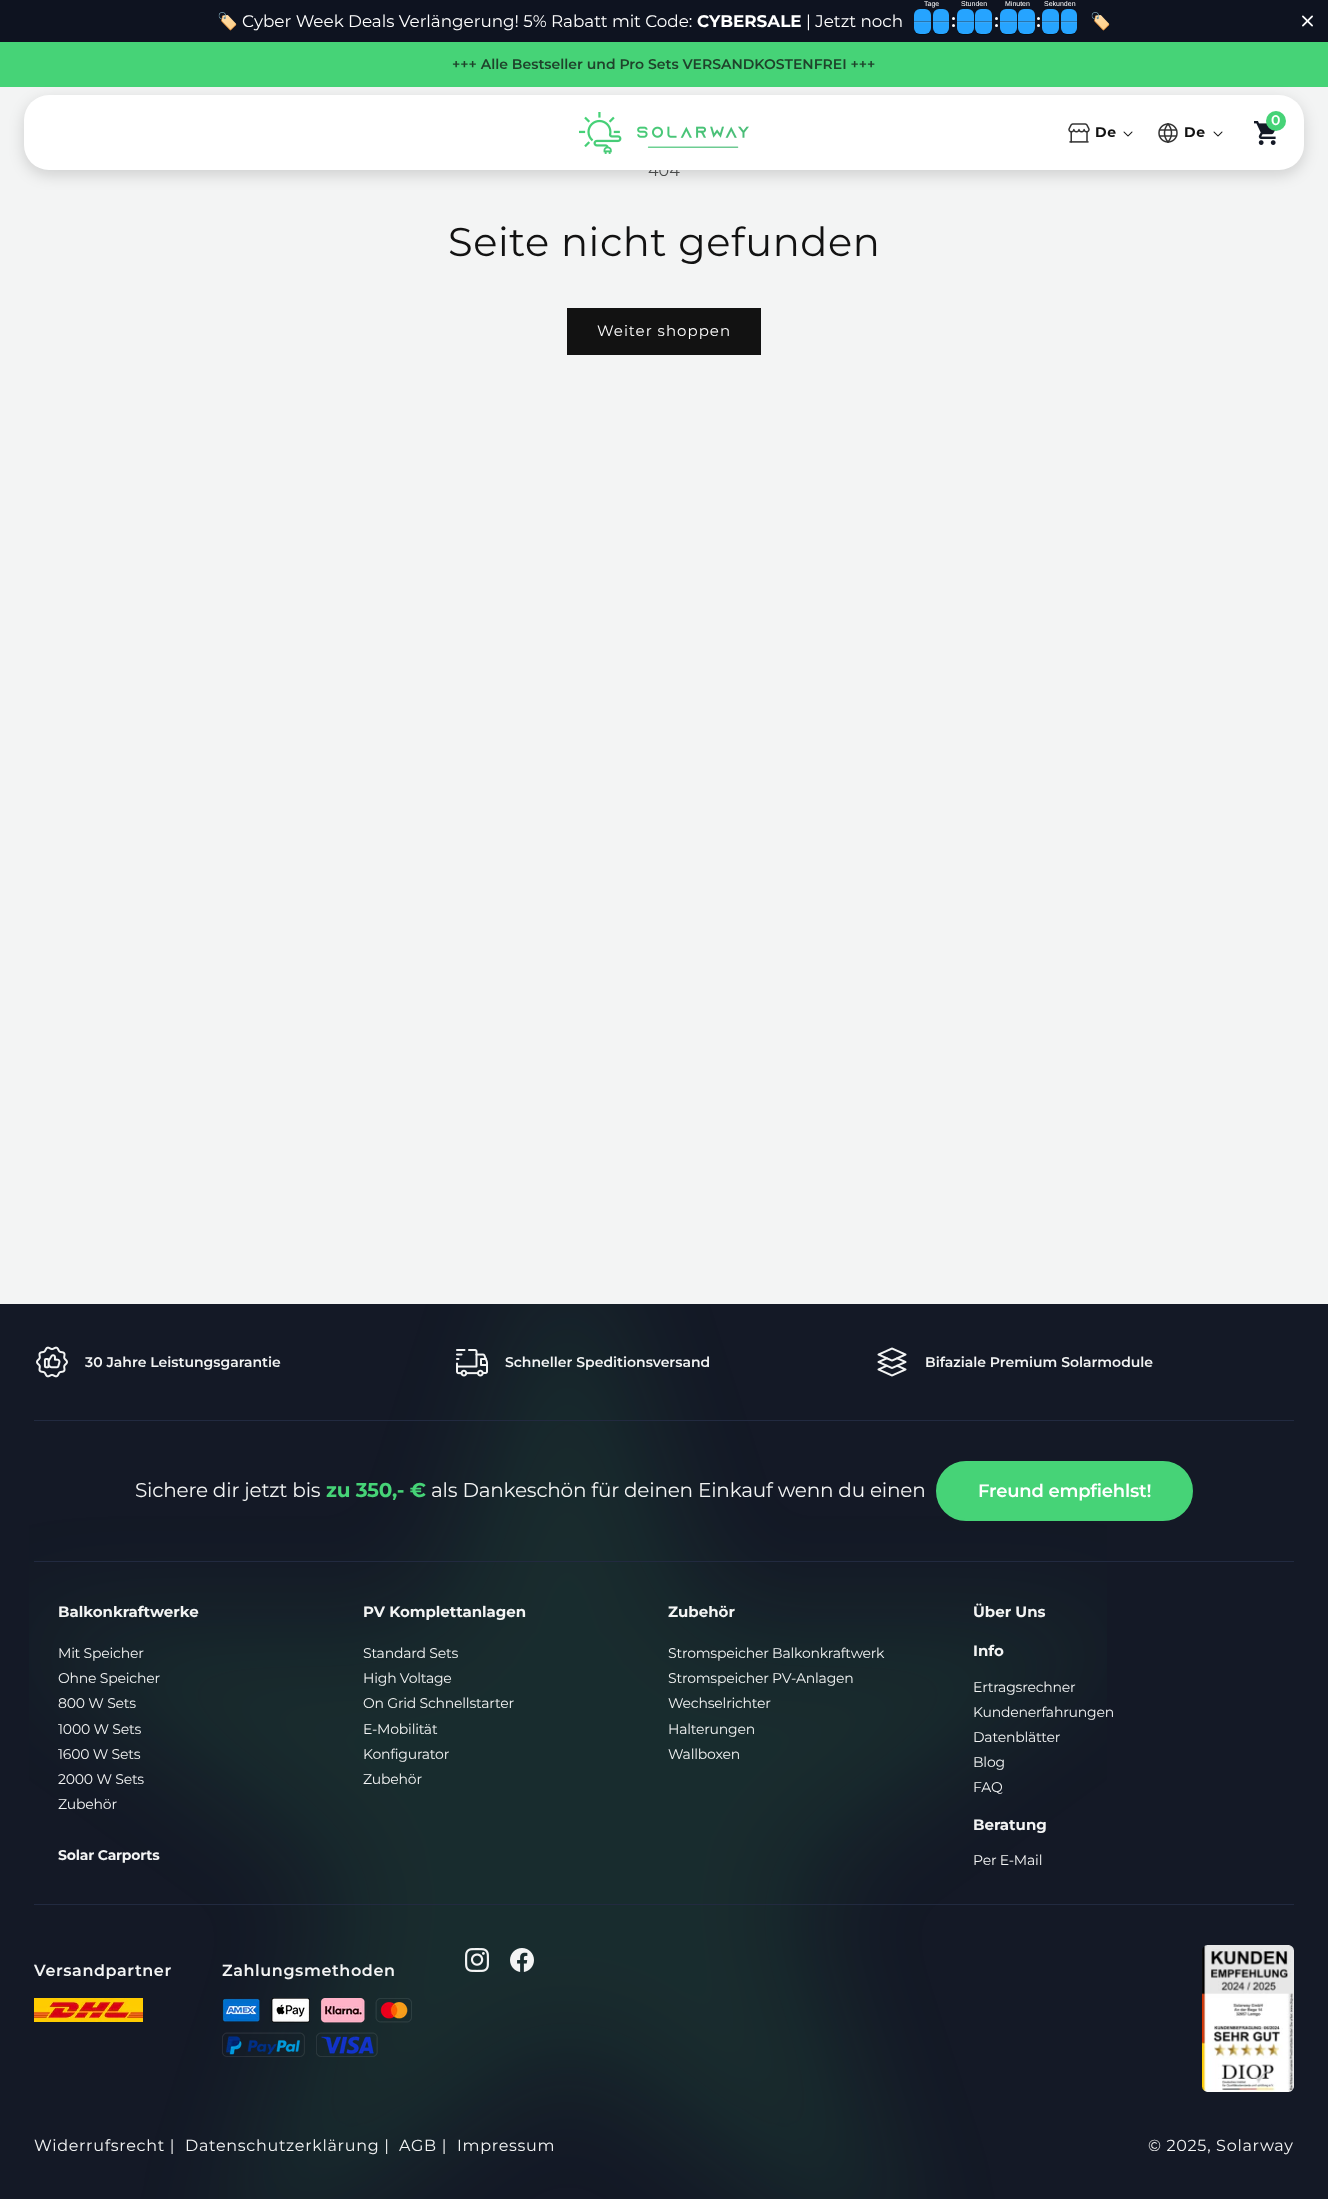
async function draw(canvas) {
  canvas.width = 1328;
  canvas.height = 2199;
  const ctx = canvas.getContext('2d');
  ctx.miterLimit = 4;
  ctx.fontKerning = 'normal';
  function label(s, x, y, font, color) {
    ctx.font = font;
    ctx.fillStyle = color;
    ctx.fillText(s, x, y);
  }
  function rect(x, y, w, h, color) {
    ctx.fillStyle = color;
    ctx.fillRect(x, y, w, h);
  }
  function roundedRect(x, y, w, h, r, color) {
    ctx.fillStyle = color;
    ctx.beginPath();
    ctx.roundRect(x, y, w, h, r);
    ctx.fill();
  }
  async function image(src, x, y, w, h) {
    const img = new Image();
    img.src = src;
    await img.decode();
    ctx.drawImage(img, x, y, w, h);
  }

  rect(0, 0, 1328, 2199, '#f3f4f4');
  rect(0, 0, 1328, 42, '#0e1320');
  label('Tage', 924, 6, '7px Liberation Sans', '#fff');
  ctx.fillStyle = '#00000066';
  ctx.filter = 'blur(0.5px)';
  ctx.beginPath();
  ctx.roundRect(914, 23, 17, 12, 6);
  ctx.fill();
  ctx.filter = 'none';
  ctx.filter = 'blur(0.5px)';
  ctx.beginPath();
  ctx.roundRect(933, 23, 16, 12, 6);
  ctx.fill();
  ctx.filter = 'none';
  ctx.fillStyle = '#26a4ff';
  ctx.beginPath();
  ctx.roundRect(914, 9, 17, 13, [6, 6, 0, 0]);
  ctx.fill();
  rect(914, 21, 17, 1, '#33333366');
  ctx.fillStyle = '#26a4ff';
  ctx.beginPath();
  ctx.roundRect(914, 22, 17, 12, [0, 0, 6, 6]);
  ctx.fill();
  rect(914, 22, 17, 1, '#cccccc1a');
  ctx.fillStyle = '#26a4ff';
  ctx.beginPath();
  ctx.roundRect(933, 9, 16, 13, [6, 6, 0, 0]);
  ctx.fill();
  rect(933, 21, 16, 1, '#33333366');
  ctx.fillStyle = '#26a4ff';
  ctx.beginPath();
  ctx.roundRect(933, 22, 16, 12, [0, 0, 6, 6]);
  ctx.fill();
  rect(933, 22, 16, 1, '#cccccc1a');
  label('Stunden', 961, 6, '7px Liberation Sans', '#fff');
  ctx.beginPath();
  ctx.arc(953.5, 25.5, 1.5, 0, 2 * Math.PI);
  ctx.fill();
  ctx.fillStyle = '#00000066';
  ctx.filter = 'blur(0.5px)';
  ctx.beginPath();
  ctx.roundRect(957, 23, 17, 12, 6);
  ctx.fill();
  ctx.filter = 'none';
  ctx.filter = 'blur(0.5px)';
  ctx.beginPath();
  ctx.roundRect(975, 23, 17, 12, 6);
  ctx.fill();
  ctx.filter = 'none';
  ctx.fillStyle = '#26a4ff';
  ctx.beginPath();
  ctx.roundRect(957, 9, 17, 13, [6, 6, 0, 0]);
  ctx.fill();
  rect(957, 21, 17, 1, '#33333366');
  ctx.fillStyle = '#26a4ff';
  ctx.beginPath();
  ctx.roundRect(957, 22, 17, 12, [0, 0, 6, 6]);
  ctx.fill();
  rect(957, 22, 17, 1, '#cccccc1a');
  ctx.fillStyle = '#26a4ff';
  ctx.beginPath();
  ctx.roundRect(975, 9, 17, 13, [6, 6, 0, 0]);
  ctx.fill();
  rect(975, 21, 17, 1, '#33333366');
  ctx.fillStyle = '#26a4ff';
  ctx.beginPath();
  ctx.roundRect(975, 22, 17, 12, [0, 0, 6, 6]);
  ctx.fill();
  rect(975, 22, 17, 1, '#cccccc1a');
  label('Minuten', 1005, 6, '7px Liberation Sans', '#fff');
  ctx.beginPath();
  ctx.arc(996.5, 25.5, 1.5, 0, 2 * Math.PI);
  ctx.fill();
  ctx.fillStyle = '#00000066';
  ctx.filter = 'blur(0.5px)';
  ctx.beginPath();
  ctx.roundRect(1000, 23, 17, 12, 6);
  ctx.fill();
  ctx.filter = 'none';
  ctx.fillStyle = '#fff';
  ctx.beginPath();
  ctx.arc(1038.5, 25.5, 1.5, 0, 2 * Math.PI);
  ctx.fill();
  ctx.fillStyle = '#00000066';
  ctx.filter = 'blur(0.5px)';
  ctx.beginPath();
  ctx.roundRect(1018, 23, 17, 12, 6);
  ctx.fill();
  ctx.filter = 'none';
  ctx.fillStyle = '#26a4ff';
  ctx.beginPath();
  ctx.roundRect(1000, 9, 17, 13, [6, 6, 0, 0]);
  ctx.fill();
  rect(1000, 21, 17, 1, '#33333366');
  ctx.fillStyle = '#26a4ff';
  ctx.beginPath();
  ctx.roundRect(1000, 22, 17, 12, [0, 0, 6, 6]);
  ctx.fill();
  rect(1000, 22, 17, 1, '#cccccc1a');
  ctx.fillStyle = '#26a4ff';
  ctx.beginPath();
  ctx.roundRect(1018, 9, 17, 13, [6, 6, 0, 0]);
  ctx.fill();
  rect(1018, 21, 17, 1, '#33333366');
  ctx.fillStyle = '#26a4ff';
  ctx.beginPath();
  ctx.roundRect(1018, 22, 17, 12, [0, 0, 6, 6]);
  ctx.fill();
  rect(1018, 22, 17, 1, '#cccccc1a');
  label('Sekunden', 1044, 6, '7px Liberation Sans', '#fff');
  ctx.fillStyle = '#00000066';
  ctx.filter = 'blur(0.5px)';
  ctx.beginPath();
  ctx.roundRect(1042, 23, 17, 12, 6);
  ctx.fill();
  ctx.filter = 'none';
  ctx.filter = 'blur(0.5px)';
  ctx.beginPath();
  ctx.roundRect(1061, 23, 16, 12, 6);
  ctx.fill();
  ctx.filter = 'none';
  ctx.fillStyle = '#26a4ff';
  ctx.beginPath();
  ctx.roundRect(1042, 9, 17, 13, [6, 6, 0, 0]);
  ctx.fill();
  rect(1042, 21, 17, 1, '#33333366');
  ctx.fillStyle = '#26a4ff';
  ctx.beginPath();
  ctx.roundRect(1042, 22, 17, 12, [0, 0, 6, 6]);
  ctx.fill();
  rect(1042, 22, 17, 1, '#cccccc1a');
  ctx.fillStyle = '#26a4ff';
  ctx.beginPath();
  ctx.roundRect(1061, 9, 16, 13, [6, 6, 0, 0]);
  ctx.fill();
  rect(1061, 21, 16, 1, '#33333366');
  ctx.fillStyle = '#26a4ff';
  ctx.beginPath();
  ctx.roundRect(1061, 22, 16, 12, [0, 0, 6, 6]);
  ctx.fill();
  rect(1061, 22, 16, 1, '#cccccc1a');
  ctx.fillStyle = '#fff';
  ctx.beginPath();
  ctx.arc(953.5, 18.5, 1.5, 0, 2 * Math.PI);
  ctx.fill();
  ctx.beginPath();
  ctx.arc(996.5, 18.5, 1.5, 0, 2 * Math.PI);
  ctx.fill();
  ctx.beginPath();
  ctx.arc(1038.5, 18.5, 1.5, 0, 2 * Math.PI);
  ctx.fill();
  label('🏷️', 217, 27, '16.8px Noto Color Emoji', '#fff');
  label('Cyber Week Deals Verlängerung! 5% Rabatt mit Code:', 242, 27, '16.8px Montserrat', '#fff');
  label('CYBERSALE', 697, 27, 'bold 16.8px Montserrat', '#fff');
  label('| Jetzt noch', 806, 27, '16.8px Montserrat', '#fff');
  label('🏷️', 1090, 27, '16.8px Noto Color Emoji', '#fff');
  await image('assets/img1.png', 1302, 15, 11, 12);
  rect(0, 42, 1328, 45, '#46d377');
  label('+++ Alle Bestseller und Pro Sets VERSANDKOSTENFREI +++', 452, 69, '600 14px Montserrat', '#1f422b');
  ctx.fillStyle = '#00000026';
  ctx.filter = 'blur(7.5px)';
  ctx.beginPath();
  ctx.roundRect(24, 100, 1280, 75, 25);
  ctx.fill();
  ctx.filter = 'none';
  label('404', 648, 176, '16px Montserrat', '#4a4b4b');
  roundedRect(24, 95, 1280, 75, 25, '#fff');
  await image('assets/img2.png', 579, 112, 170, 42);
  await image('assets/img3.png', 1254, 121, 22, 24);
  ctx.fillStyle = '#46d377';
  ctx.beginPath();
  ctx.arc(1276, 121, 10, 0, 2 * Math.PI);
  ctx.fill();
  label('0', 1271, 125, '600 14px Montserrat', '#fff');
  await image('assets/img4.png', 1068, 123, 22, 20);
  ctx.letterSpacing = '0.6px';
  label('De', 1095, 137, 'bold 14px Montserrat', '#121212');
  await image('assets/img5.png', 1123, 131, 10, 6);
  await image('assets/img6.png', 1158, 123, 20, 20);
  label('De', 1184, 137, 'bold 14px Montserrat', '#121212');
  await image('assets/img5.png', 1213, 131, 10, 6);
  label('Seite nicht gefunden', 448, 256, '40px Montserrat', '#121212');
  rect(567, 308, 194, 47, '#121212');
  ctx.letterSpacing = '1px';
  label('Weiter shoppen', 597, 336, '15px Montserrat', '#fff');
  rect(0, 1304, 1328, 895, '#141926');
  await image('assets/img7.png', 29, 1304, 1078, 895);
  await image('assets/img8.png', 36, 1346, 32, 32);
  ctx.letterSpacing = '0px';
  label('30 Jahre Leistungsgarantie', 85, 1367, '600 14px Montserrat', '#f3f4f4');
  await image('assets/img9.png', 456, 1349, 32, 28);
  label('Schneller Speditionsversand', 505, 1367, '600 14px Montserrat', '#f3f4f4');
  await image('assets/img10.png', 877, 1347, 30, 30);
  label('Bifaziale Premium Solarmodule', 925, 1367, '600 14px Montserrat', '#f3f4f4');
  rect(34, 1420, 1260, 1, '#222a40');
  ctx.letterSpacing = '-0.2px';
  label('Sichere dir jetzt bis', 135, 1497, '20px Montserrat', '#f3f4f4');
  label('zu 350,- €', 326, 1497, 'bold 20px Montserrat', '#46d377');
  label('als Dankeschön für deinen Einkauf wenn du einen', 431, 1497, '20px Montserrat', '#f3f4f4');
  ctx.fillStyle = '#46d377';
  ctx.beginPath();
  ctx.roundRect(937, 1462, 255, 58, 29);
  ctx.fill();
  ctx.strokeStyle = '#46d377';
  ctx.lineWidth = 2;
  ctx.stroke();
  label('Freund empfiehlst!', 978, 1497, '600 18px Montserrat', '#fff');
  rect(34, 1561, 1260, 1, '#222a40');
  rect(34, 1904, 1260, 1, '#222a40');
  ctx.letterSpacing = '0px';
  label('Balkonkraftwerke', 58, 1617, 'bold 15px Montserrat', '#f3f4f4');
  ctx.letterSpacing = '-0.2px';
  label('Mit Speicher', 58, 1658, '14px Montserrat', '#f3f4f4');
  label('Ohne Speicher', 58, 1683, '14px Montserrat', '#f3f4f4');
  label('800 W Sets', 58, 1708, '14px Montserrat', '#f3f4f4');
  label('1000 W Sets', 58, 1734, '14px Montserrat', '#f3f4f4');
  label('1600 W Sets', 58, 1759, '14px Montserrat', '#f3f4f4');
  label('2000 W Sets', 58, 1784, '14px Montserrat', '#f3f4f4');
  label('Zubehör', 58, 1809, '14px Montserrat', '#f3f4f4');
  label('Solar Carports', 58, 1860, 'bold 14px Montserrat', '#f3f4f4');
  ctx.letterSpacing = '0px';
  label('PV Komplettanlagen', 363, 1617, 'bold 15px Montserrat', '#f3f4f4');
  ctx.letterSpacing = '-0.2px';
  label('Standard Sets', 363, 1658, '14px Montserrat', '#f3f4f4');
  label('High Voltage', 363, 1683, '14px Montserrat', '#f3f4f4');
  label('On Grid Schnellstarter', 363, 1708, '14px Montserrat', '#f3f4f4');
  label('E-Mobilität', 363, 1734, '14px Montserrat', '#f3f4f4');
  label('Konfigurator', 363, 1759, '14px Montserrat', '#f3f4f4');
  label('Zubehör', 363, 1784, '14px Montserrat', '#f3f4f4');
  ctx.letterSpacing = '0px';
  label('Zubehör', 668, 1617, 'bold 15px Montserrat', '#f3f4f4');
  ctx.letterSpacing = '-0.2px';
  label('Stromspeicher Balkonkraftwerk', 668, 1658, '14px Montserrat', '#f3f4f4');
  label('Stromspeicher PV-Anlagen', 668, 1683, '14px Montserrat', '#f3f4f4');
  label('Wechselrichter', 668, 1708, '14px Montserrat', '#f3f4f4');
  label('Halterungen', 668, 1734, '14px Montserrat', '#f3f4f4');
  label('Wallboxen', 668, 1759, '14px Montserrat', '#f3f4f4');
  ctx.letterSpacing = '0px';
  label('Über Uns', 973, 1617, 'bold 15px Montserrat', '#f3f4f4');
  label('Info', 973, 1656, 'bold 15px Montserrat', '#f3f4f4');
  ctx.letterSpacing = '-0.2px';
  label('Ertragsrechner', 973, 1692, '14px Montserrat', '#f3f4f4');
  label('Kundenerfahrungen', 973, 1717, '14px Montserrat', '#f3f4f4');
  label('Datenblätter', 973, 1742, '14px Montserrat', '#f3f4f4');
  label('Blog', 973, 1767, '14px Montserrat', '#f3f4f4');
  label('FAQ', 973, 1792, '14px Montserrat', '#f3f4f4');
  ctx.letterSpacing = '0px';
  label('Beratung', 973, 1830, 'bold 15px Montserrat', '#f3f4f4');
  ctx.letterSpacing = '-0.2px';
  label('Per E-Mail', 973, 1865, '14px Montserrat', '#f3f4f4');
  ctx.letterSpacing = '0.6px';
  label('Versandpartner', 34, 1976, '600 16px Montserrat', '#f3f4f4');
  await image('assets/img11.png', 34, 1998, 109, 24);
  label('Zahlungsmethoden', 222, 1976, '600 16px Montserrat', '#f3f4f4');
  await image('assets/img12.png', 222, 1998, 190, 59);
  await image('assets/img13.png', 465, 1948, 24, 24);
  await image('assets/img14.png', 510, 1948, 24, 24);
  await image('assets/img15.png', 1202, 1945, 92, 147);
  ctx.letterSpacing = '0.7px';
  label('Widerrufsrecht |', 34, 2151, '16px Montserrat', '#f3f4f4');
  label('Datenschutzerklärung |', 185, 2151, '16px Montserrat', '#f3f4f4');
  label('AGB |', 399, 2151, '16px Montserrat', '#f3f4f4');
  label('Impressum', 457, 2151, '16px Montserrat', '#f3f4f4');
  label('© 2025, Solarway', 1148, 2151, '16px Montserrat', '#f3f4f4');
}

draw(document.querySelector('canvas'));
